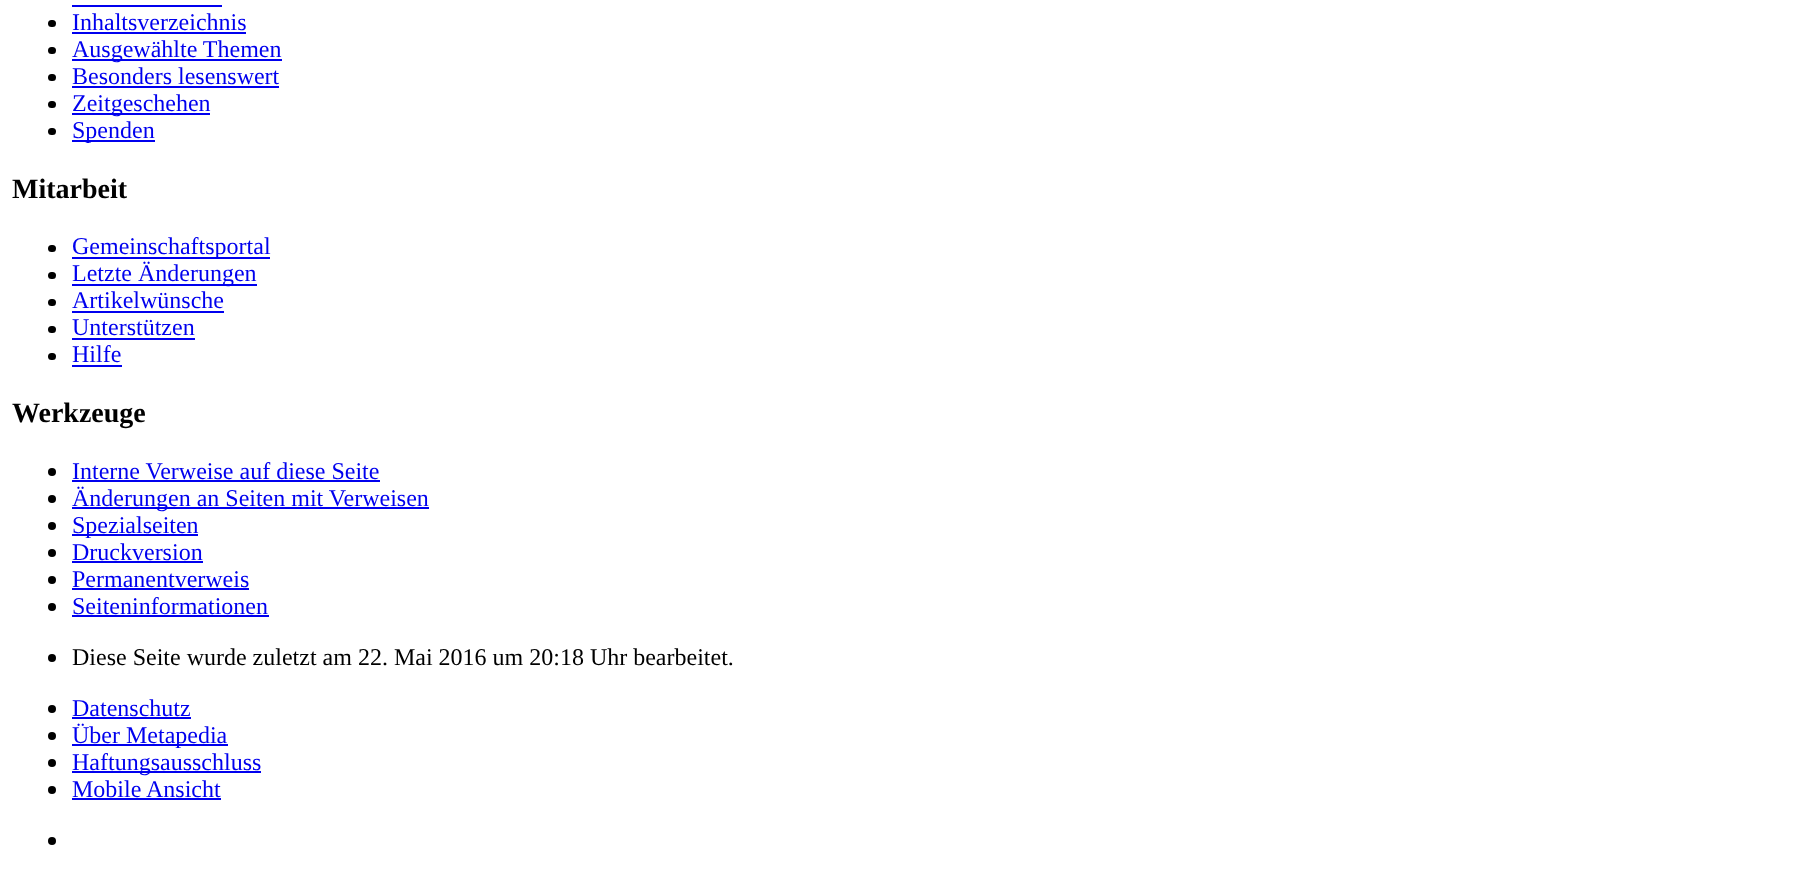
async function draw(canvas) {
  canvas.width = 1814;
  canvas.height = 877;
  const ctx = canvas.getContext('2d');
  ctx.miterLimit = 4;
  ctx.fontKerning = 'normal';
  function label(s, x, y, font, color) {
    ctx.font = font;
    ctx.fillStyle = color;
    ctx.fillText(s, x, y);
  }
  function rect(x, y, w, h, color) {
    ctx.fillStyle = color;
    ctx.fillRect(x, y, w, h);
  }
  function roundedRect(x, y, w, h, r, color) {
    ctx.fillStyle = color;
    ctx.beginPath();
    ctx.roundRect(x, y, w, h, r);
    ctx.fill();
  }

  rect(0, 0, 1814, 877, '#fff');
  rect(72, 5, 150, 2, '#00e');
  roundedRect(48, 20, 8, 7, 3.5, '#000');
  label('Inhaltsverzeichnis', 72, 30, '24px Liberation Serif', '#00e');
  rect(72, 32, 174, 2, '#00e');
  roundedRect(48, 47, 8, 7, 3.5, '#000');
  rect(72, 59, 210, 2, '#00e');
  label('Ausgewählte Themen', 72, 57, '24px Liberation Serif', '#00e');
  roundedRect(48, 74, 8, 7, 3.5, '#000');
  label('Besonders lesenswert', 72, 84, '24px Liberation Serif', '#00e');
  rect(72, 86, 207, 2, '#00e');
  roundedRect(48, 101, 8, 7, 3.5, '#000');
  rect(72, 113, 138, 2, '#00e');
  label('Zeitgeschehen', 72, 111, '24px Liberation Serif', '#00e');
  roundedRect(48, 128, 8, 7, 3.5, '#000');
  rect(72, 140, 83, 2, '#00e');
  label('Spenden', 72, 138, '24px Liberation Serif', '#00e');
  label('Mitarbeit', 12, 198, 'bold 28px Liberation Serif', '#000');
  roundedRect(48, 245, 8, 7, 3.5, '#000');
  rect(72, 257, 198, 2, '#00e');
  label('Gemeinschaftsportal', 72, 254, '24px Liberation Serif', '#00e');
  roundedRect(48, 272, 8, 7, 3.5, '#000');
  rect(72, 284, 185, 2, '#00e');
  label('Letzte Änderungen', 72, 281, '24px Liberation Serif', '#00e');
  roundedRect(48, 299, 8, 7, 3.5, '#000');
  label('Artikelwünsche', 72, 308, '24px Liberation Serif', '#00e');
  rect(72, 311, 152, 2, '#00e');
  roundedRect(48, 326, 8, 7, 3.5, '#000');
  label('Unterstützen', 72, 335, '24px Liberation Serif', '#00e');
  rect(72, 338, 123, 2, '#00e');
  roundedRect(48, 353, 8, 7, 3.5, '#000');
  label('Hilfe', 72, 362, '24px Liberation Serif', '#00e');
  rect(72, 365, 50, 2, '#00e');
  label('Werkzeuge', 12, 422, 'bold 28px Liberation Serif', '#000');
  ctx.beginPath();
  ctx.arc(52, 472, 4, 0, 2 * Math.PI);
  ctx.fill();
  label('Interne Verweise auf diese Seite', 72, 479, '24px Liberation Serif', '#00e');
  rect(72, 480, 308, 2, '#00e');
  ctx.fillStyle = '#000';
  ctx.beginPath();
  ctx.arc(52, 499, 4, 0, 2 * Math.PI);
  ctx.fill();
  rect(72, 507, 357, 2, '#00e');
  label('Änderungen an Seiten mit Verweisen', 72, 506, '24px Liberation Serif', '#00e');
  ctx.fillStyle = '#000';
  ctx.beginPath();
  ctx.arc(52, 526, 4, 0, 2 * Math.PI);
  ctx.fill();
  rect(72, 534, 126, 2, '#00e');
  label('Spezialseiten', 72, 533, '24px Liberation Serif', '#00e');
  ctx.fillStyle = '#000';
  ctx.beginPath();
  ctx.arc(52, 553, 4, 0, 2 * Math.PI);
  ctx.fill();
  label('Druckversion', 72, 560, '24px Liberation Serif', '#00e');
  rect(72, 561, 131, 2, '#00e');
  ctx.fillStyle = '#000';
  ctx.beginPath();
  ctx.arc(52, 580, 4, 0, 2 * Math.PI);
  ctx.fill();
  label('Permanentverweis', 72, 587, '24px Liberation Serif', '#00e');
  rect(72, 588, 177, 2, '#00e');
  ctx.fillStyle = '#000';
  ctx.beginPath();
  ctx.arc(52, 607, 4, 0, 2 * Math.PI);
  ctx.fill();
  label('Seiteninformationen', 72, 614, '24px Liberation Serif', '#00e');
  rect(72, 615, 197, 2, '#00e');
  ctx.fillStyle = '#000';
  ctx.beginPath();
  ctx.arc(52, 658, 4, 0, 2 * Math.PI);
  ctx.fill();
  label('Diese Seite wurde zuletzt am 22. Mai 2016 um 20:18 Uhr bearbeitet.', 72, 665, '24px Liberation Serif', '#000');
  ctx.beginPath();
  ctx.arc(52, 709, 4, 0, 2 * Math.PI);
  ctx.fill();
  label('Datenschutz', 72, 716, '24px Liberation Serif', '#00e');
  rect(72, 717, 119, 2, '#00e');
  ctx.fillStyle = '#000';
  ctx.beginPath();
  ctx.arc(52, 736, 4, 0, 2 * Math.PI);
  ctx.fill();
  rect(72, 744, 156, 2, '#00e');
  label('Über Metapedia', 72, 743, '24px Liberation Serif', '#00e');
  ctx.fillStyle = '#000';
  ctx.beginPath();
  ctx.arc(52, 763, 4, 0, 2 * Math.PI);
  ctx.fill();
  rect(72, 771, 189, 2, '#00e');
  label('Haftungsausschluss', 72, 770, '24px Liberation Serif', '#00e');
  ctx.fillStyle = '#000';
  ctx.beginPath();
  ctx.arc(52, 790, 4, 0, 2 * Math.PI);
  ctx.fill();
  label('Mobile Ansicht', 72, 797, '24px Liberation Serif', '#00e');
  rect(72, 798, 149, 2, '#00e');
  ctx.fillStyle = '#000';
  ctx.beginPath();
  ctx.arc(52, 841, 4, 0, 2 * Math.PI);
  ctx.fill();
}

draw(document.querySelector('canvas'));
